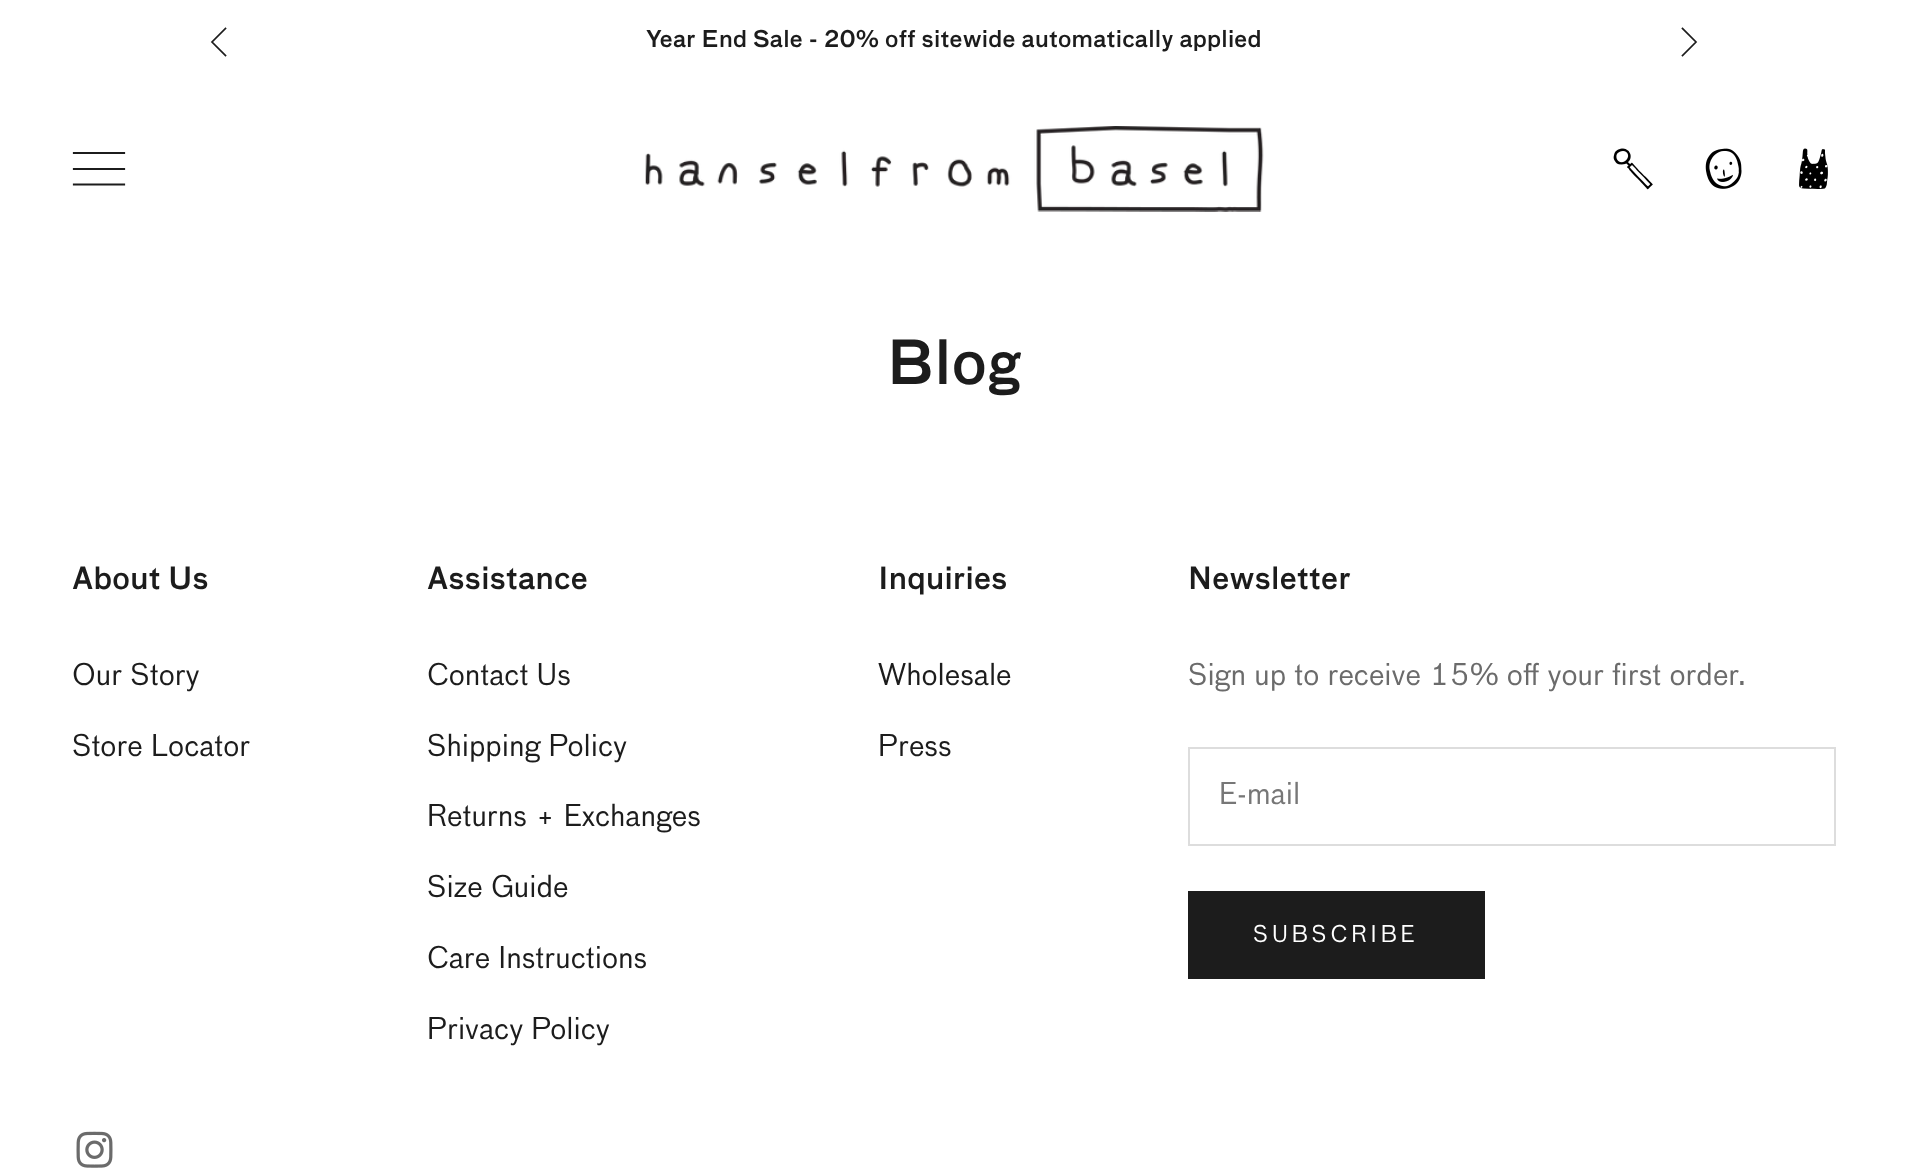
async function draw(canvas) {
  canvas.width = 1906;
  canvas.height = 1170;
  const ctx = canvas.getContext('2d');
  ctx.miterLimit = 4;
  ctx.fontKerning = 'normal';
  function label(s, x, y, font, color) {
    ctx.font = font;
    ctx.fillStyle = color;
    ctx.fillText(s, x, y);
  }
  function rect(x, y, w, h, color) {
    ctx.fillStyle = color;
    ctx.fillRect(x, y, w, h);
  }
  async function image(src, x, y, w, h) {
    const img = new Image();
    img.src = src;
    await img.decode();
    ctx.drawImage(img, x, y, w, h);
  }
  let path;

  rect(0, 0, 1906, 1170, '#fff');
  path = new Path2D('M225.5 28.5L212 42L225.5 55.5');
  ctx.strokeStyle = '#1c1c1c';
  ctx.lineWidth = 1.7;
  ctx.lineCap = 'square';
  ctx.stroke(path);
  ctx.letterSpacing = '0.23px';
  label('Year End Sale - 20% off sitewide automatically applied', 646, 47, '22.5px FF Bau', '#1c1c1c');
  path = new Path2D('M1682.5 55.5L1696 42L1682.5 28.5');
  ctx.stroke(path);
  path = new Path2D('M74 184.5H124M74 169H124M74 153H124');
  ctx.lineWidth = 2.2;
  ctx.stroke(path);
  await image('assets/img1.png', 645, 126, 619, 86);
  await image('assets/img2.png', 1613, 148, 40, 42);
  await image('assets/img3.png', 1705, 148, 37, 41);
  await image('assets/img4.png', 1799, 148, 29, 41);
  ctx.letterSpacing = '0.5px';
  label('Blog', 887, 384, '59px FF Bau', '#1c1c1c');
  ctx.letterSpacing = '0.25px';
  label('About Us', 72, 589, '29.75px FF Bau', '#1c1c1c');
  ctx.letterSpacing = '0px';
  label('Our Story', 72, 685, '29.25px "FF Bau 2"', '#1c1c1c');
  label('Store Locator', 72, 756, '29.25px "FF Bau 2"', '#1c1c1c');
  ctx.letterSpacing = '0.25px';
  label('Assistance', 427, 589, '29.75px FF Bau', '#1c1c1c');
  ctx.letterSpacing = '0px';
  label('Contact Us', 427, 685, '29.25px "FF Bau 2"', '#1c1c1c');
  label('Shipping Policy', 427, 756, '29.25px "FF Bau 2"', '#1c1c1c');
  label('Returns + Exchanges', 427, 826, '29.25px "FF Bau 2"', '#1c1c1c');
  label('Size Guide', 427, 897, '29.25px "FF Bau 2"', '#1c1c1c');
  label('Care Instructions', 427, 968, '29.25px "FF Bau 2"', '#1c1c1c');
  label('Privacy Policy', 427, 1039, '29.25px "FF Bau 2"', '#1c1c1c');
  ctx.letterSpacing = '0.25px';
  label('Inquiries', 878, 589, '29.75px FF Bau', '#1c1c1c');
  ctx.letterSpacing = '0px';
  label('Wholesale', 878, 685, '29.25px "FF Bau 2"', '#1c1c1c');
  label('Press', 878, 756, '29.25px "FF Bau 2"', '#1c1c1c');
  ctx.letterSpacing = '0.25px';
  label('Newsletter', 1188, 589, '29.75px FF Bau', '#1c1c1c');
  ctx.letterSpacing = '0px';
  label('Sign up to receive 15% off your first order.', 1188, 685, '29.25px "FF Bau 2"', '#6b6b6b');
  ctx.strokeStyle = '#ddd';
  ctx.lineWidth = 2;
  ctx.strokeRect(1189, 748, 646, 97);
  label('E-mail', 1219, 804, '29.25px "FF Bau 2"', '#777');
  ctx.fillStyle = '#1c1c1c';
  ctx.beginPath();
  ctx.rect(1189, 892, 295, 86);
  ctx.fill();
  ctx.strokeStyle = '#1c1c1c';
  ctx.stroke();
  ctx.letterSpacing = '4px';
  label('SUBSCRIBE', 1253, 942, '22.5px "FF Bau 2"', '#fff');
  await image('assets/img5.png', 76, 1131, 37, 37);
}

draw(document.querySelector('canvas'));
